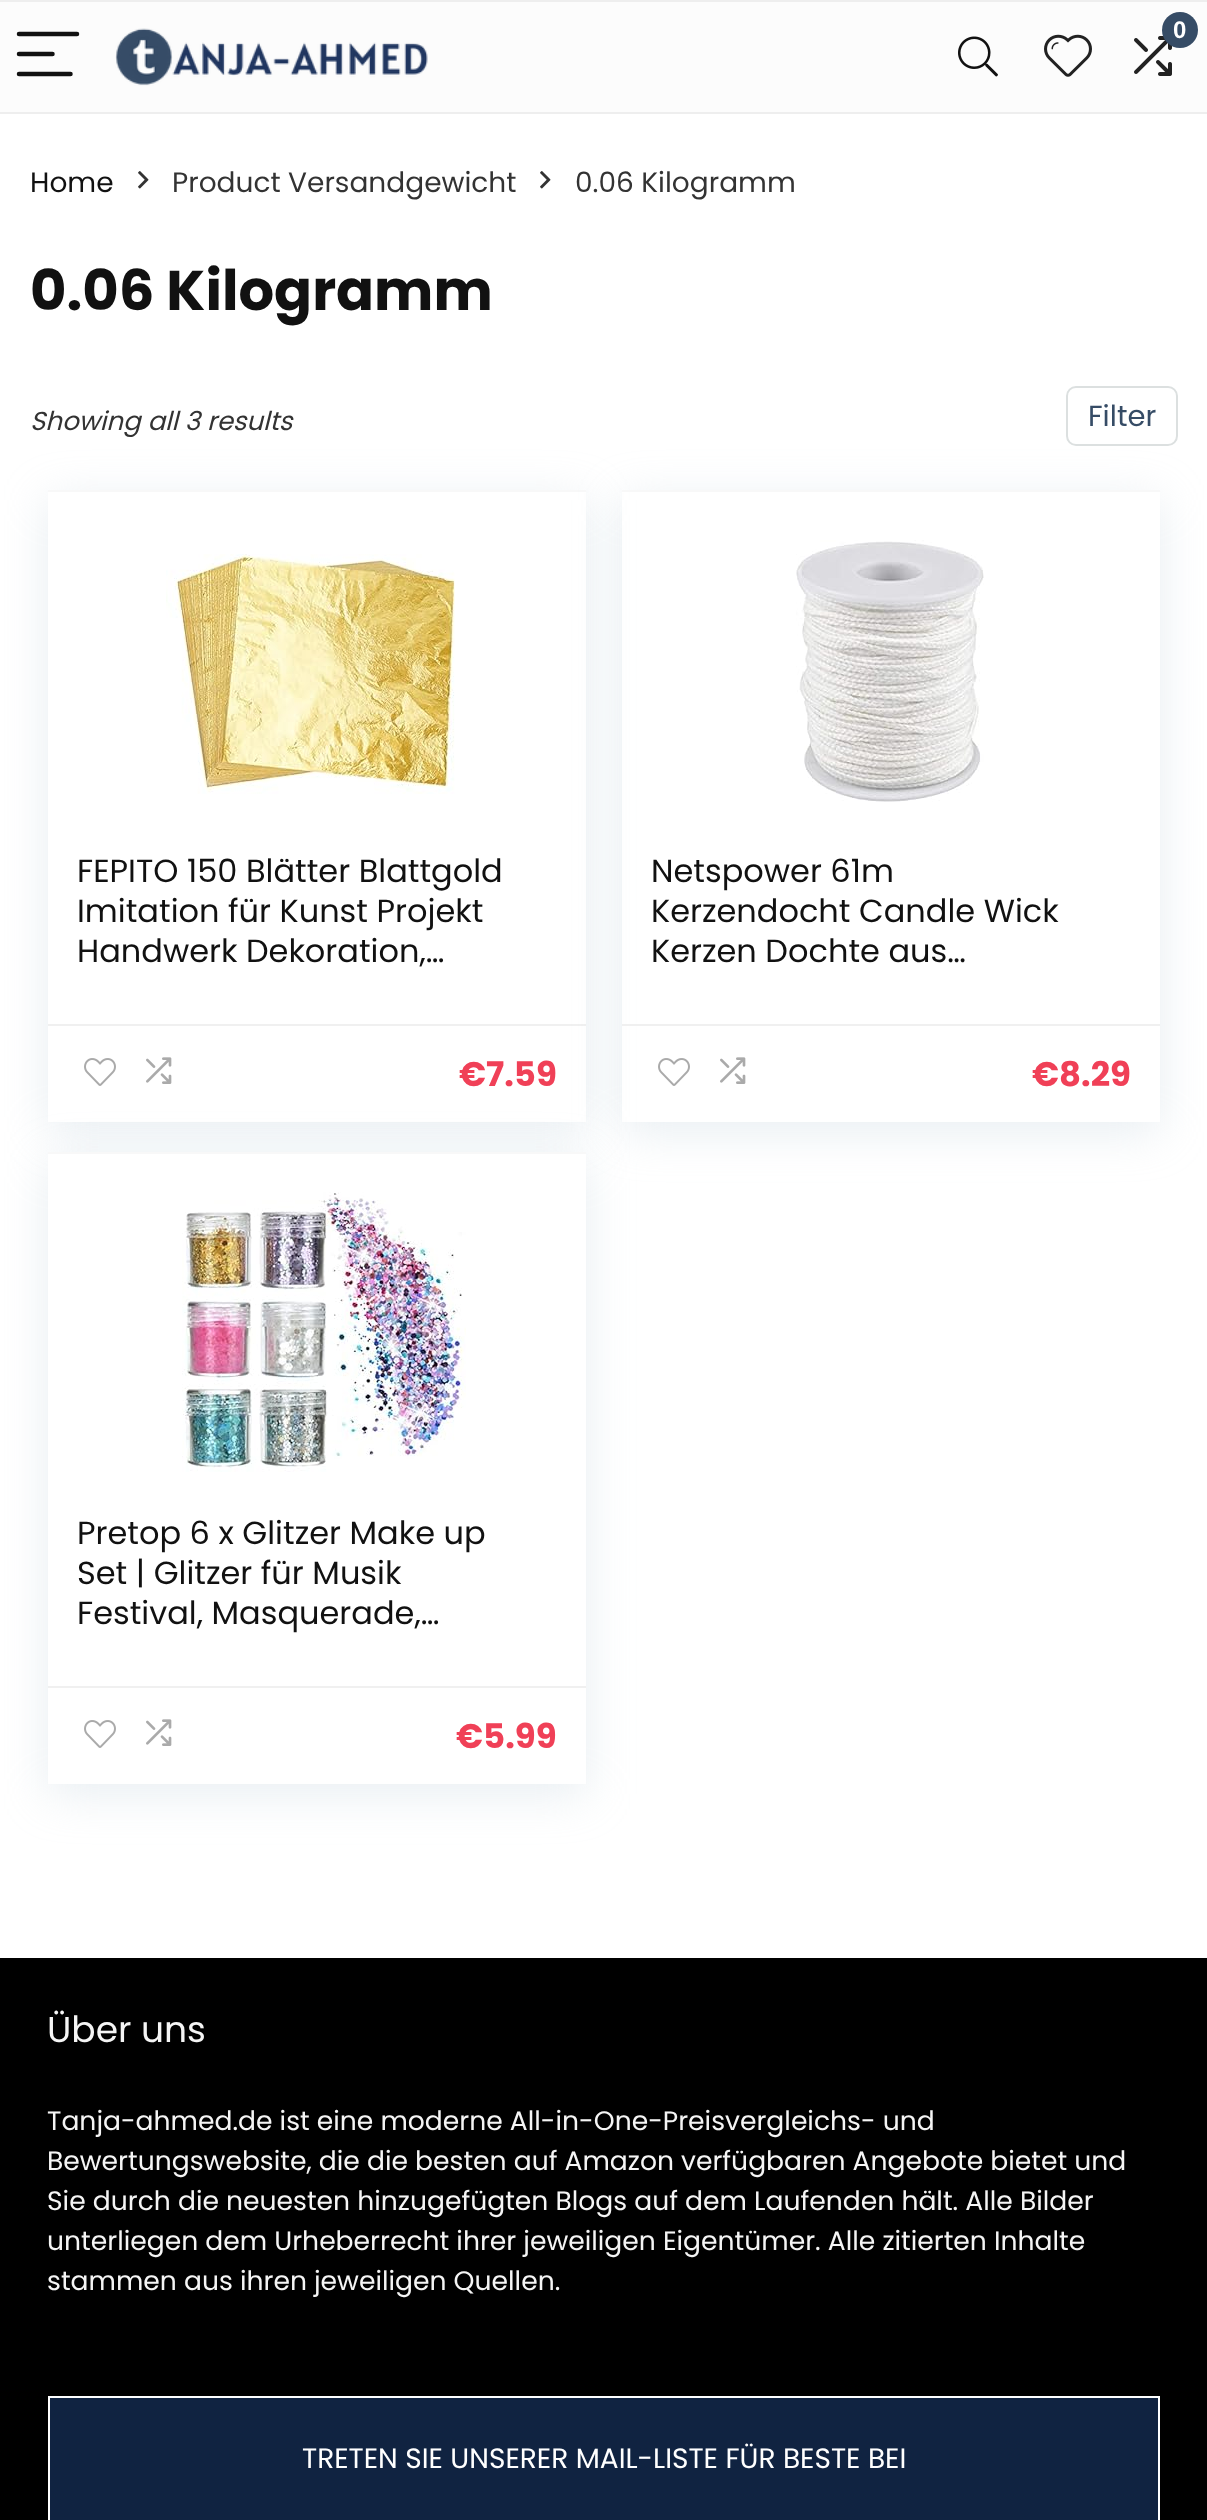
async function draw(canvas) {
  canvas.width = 1207;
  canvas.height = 2520;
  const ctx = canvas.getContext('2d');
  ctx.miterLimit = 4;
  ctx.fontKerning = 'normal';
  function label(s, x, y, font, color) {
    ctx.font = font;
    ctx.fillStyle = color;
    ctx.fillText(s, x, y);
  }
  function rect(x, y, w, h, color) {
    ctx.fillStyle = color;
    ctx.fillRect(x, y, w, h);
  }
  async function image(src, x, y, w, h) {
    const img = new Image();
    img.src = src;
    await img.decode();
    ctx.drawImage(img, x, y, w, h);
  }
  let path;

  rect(0, 0, 1207, 2520, '#fff');
  rect(0, 2, 1207, 110, '#fcfcfc');
  rect(0, 0, 1207, 2, '#eee');
  rect(0, 112, 1207, 2, '#eee');
  path = new Path2D('M19 34H77');
  ctx.strokeStyle = '#111';
  ctx.lineWidth = 4.5;
  ctx.lineCap = 'round';
  ctx.stroke(path);
  path = new Path2D('M19 54H52.5M19 74H70.5');
  ctx.stroke(path);
  await image('assets/img1.png', 115, 28, 313, 58);
  await image('assets/img2.png', 1134, 36, 38, 40);
  ctx.fillStyle = '#364c66';
  ctx.beginPath();
  ctx.arc(1180, 30, 18, 0, 2 * Math.PI);
  ctx.fill();
  label('0', 1173, 38, 'bold 24px Liberation Sans', '#fff');
  await image('assets/img3.png', 958, 36, 40, 41);
  await image('assets/img4.png', 1044, 34, 48, 43);
  label('Home', 30, 192, '28px Poppins', '#111');
  await image('assets/img5.png', 138, 171, 11, 18);
  label('Product Versandgewicht', 172, 192, '28px Poppins', '#333');
  await image('assets/img5.png', 540, 171, 11, 18);
  label('0.06 Kilogramm', 575, 192, '28px Poppins', '#333');
  label('0.06 Kilogramm', 30, 310, 'bold 56px Poppins', '#111');
  label('Showing all 3 results', 30, 430, 'italic 26px Poppins', '#333');
  ctx.beginPath();
  ctx.roundRect(1067, 387, 110, 58, 9);
  ctx.strokeStyle = '#dce0e0';
  ctx.lineWidth = 2;
  ctx.stroke();
  label('Filter', 1088, 426, '29px Poppins', '#364c66');
  ctx.save();
  path = new Path2D('M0 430H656V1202H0ZM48 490H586V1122H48Z');
  ctx.clip(path, 'evenodd');
  ctx.fillStyle = '#bccfdb59';
  ctx.filter = 'blur(23px)';
  ctx.beginPath();
  ctx.rect(48, 500, 538, 632);
  ctx.fill();
  ctx.filter = 'none';
  ctx.restore();
  rect(48, 490, 538, 2, '#f8f8f8');
  await image('assets/img6.png', 166, 554, 289, 240);
  label('FEPITO 150 Blätter Blattgold', 77, 882, '32px Poppins', '#111');
  label('Imitation für Kunst Projekt', 77, 922, '32px Poppins', '#111');
  label('Handwerk Dekoration,…', 77, 962, '32px Poppins', '#111');
  rect(48, 1024, 538, 2, '#f0f0f0');
  await image('assets/img7.png', 84, 1058, 32, 28);
  await image('assets/img8.png', 146, 1057, 26, 27);
  label('€7.59', 459, 1086, 'bold 34px Poppins', '#f04057');
  ctx.save();
  path = new Path2D('M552 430H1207V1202H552ZM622 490H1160V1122H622Z');
  ctx.clip(path, 'evenodd');
  ctx.fillStyle = '#bccfdb59';
  ctx.filter = 'blur(23px)';
  ctx.beginPath();
  ctx.rect(622, 500, 538, 632);
  ctx.fill();
  ctx.filter = 'none';
  ctx.restore();
  rect(622, 490, 538, 2, '#f8f8f8');
  await image('assets/img9.png', 796, 540, 188, 262);
  label('Netspower 61m', 651, 882, '32px Poppins', '#111');
  label('Kerzendocht Candle Wick', 651, 922, '32px Poppins', '#111');
  label('Kerzen Dochte aus…', 651, 962, '32px Poppins', '#111');
  rect(622, 1024, 538, 2, '#f0f0f0');
  await image('assets/img7.png', 658, 1058, 32, 28);
  await image('assets/img8.png', 720, 1057, 26, 27);
  label('€8.29', 1032, 1086, 'bold 34px Poppins', '#f04057');
  ctx.fillStyle = '#bccfdb59';
  ctx.filter = 'blur(23px)';
  ctx.beginPath();
  ctx.rect(48, 1162, 538, 632);
  ctx.fill();
  ctx.filter = 'none';
  rect(48, 1154, 538, 630, '#fff');
  rect(48, 1152, 538, 2, '#f8f8f8');
  await image('assets/img10.png', 182, 1192, 284, 280);
  label('Pretop 6 x Glitzer Make up', 77, 1544, '32px Poppins', '#111');
  label('Set | Glitzer für Musik', 77, 1584, '32px Poppins', '#111');
  label('Festival, Masquerade,…', 77, 1624, '32px Poppins', '#111');
  rect(48, 1686, 538, 2, '#f0f0f0');
  await image('assets/img7.png', 84, 1720, 32, 28);
  await image('assets/img8.png', 146, 1719, 26, 27);
  label('€5.99', 456, 1748, 'bold 34px Poppins', '#f04057');
  rect(0, 1958, 1207, 562, '#000');
  label('Über uns', 47, 2042, '36px Poppins', '#f5f5f5');
  label('Tanja-ahmed.de ist eine moderne All-in-One-Preisvergleichs- und', 47, 2130, '26.6px Poppins', '#f5f5f5');
  label('Bewertungswebsite, die die besten auf Amazon verfügbaren Angebote bietet und', 47, 2170, '26.6px Poppins', '#f5f5f5');
  label('Sie durch die neuesten hinzugefügten Blogs auf dem Laufenden hält. Alle Bilder', 47, 2210, '26.6px Poppins', '#f5f5f5');
  label('unterliegen dem Urheberrecht ihrer jeweiligen Eigentümer. Alle zitierten Inhalte', 47, 2250, '26.6px Poppins', '#f5f5f5');
  label('stammen aus ihren jeweiligen Quellen.', 47, 2290, '26.6px Poppins', '#f5f5f5');
  ctx.fillStyle = '#102341';
  ctx.beginPath();
  ctx.rect(49, 2397, 1110, 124);
  ctx.fill();
  ctx.strokeStyle = '#fff';
  ctx.stroke();
  label('TRETEN SIE UNSERER MAIL-LISTE FÜR BESTE BEI', 302, 2468, '28px Poppins', '#fff');
}

draw(document.querySelector('canvas'));
